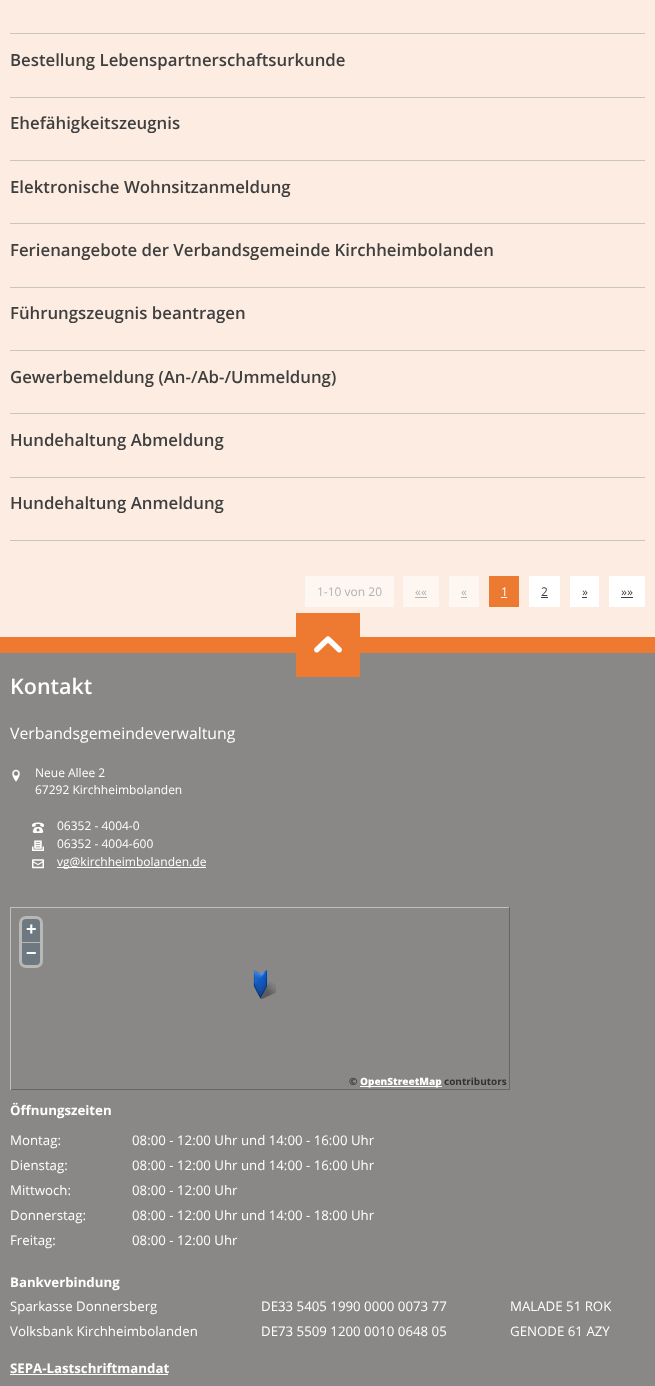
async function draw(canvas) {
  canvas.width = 655;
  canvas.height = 1386;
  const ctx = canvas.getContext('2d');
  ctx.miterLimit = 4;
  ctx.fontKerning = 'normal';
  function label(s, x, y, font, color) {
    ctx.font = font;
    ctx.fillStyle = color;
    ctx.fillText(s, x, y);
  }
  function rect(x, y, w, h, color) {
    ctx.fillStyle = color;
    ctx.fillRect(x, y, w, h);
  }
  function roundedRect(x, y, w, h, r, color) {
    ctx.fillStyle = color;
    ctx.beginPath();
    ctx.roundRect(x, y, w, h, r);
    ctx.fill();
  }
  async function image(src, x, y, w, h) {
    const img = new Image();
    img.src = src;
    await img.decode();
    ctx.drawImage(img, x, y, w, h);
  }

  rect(0, 0, 655, 1386, '#fcece1');
  rect(10, 33, 635, 1, '#c9c6bd');
  rect(10, 97, 635, 1, '#c9c6bd');
  label('Bestellung Lebenspartnerschaftsurkunde', 10, 66, '600 16.8px Open Sans', '#3f3f3f');
  rect(10, 160, 635, 1, '#c9c6bd');
  label('Ehefähigkeitszeugnis', 10, 129, '600 16.8px Open Sans', '#3f3f3f');
  rect(10, 223, 635, 1, '#c9c6bd');
  label('Elektronische Wohnsitzanmeldung', 10, 193, '600 16.8px Open Sans', '#3f3f3f');
  rect(10, 287, 635, 1, '#c9c6bd');
  label('Ferienangebote der Verbandsgemeinde Kirchheimbolanden', 10, 256, '600 16.8px Open Sans', '#3f3f3f');
  rect(10, 350, 635, 1, '#c9c6bd');
  label('Führungszeugnis beantragen', 10, 319, '600 16.8px Open Sans', '#3f3f3f');
  rect(10, 413, 635, 1, '#c9c6bd');
  label('Gewerbemeldung (An-/Ab-/Ummeldung)', 10, 383, '600 16.8px Open Sans', '#3f3f3f');
  rect(10, 477, 635, 1, '#c9c6bd');
  label('Hundehaltung Abmeldung', 10, 446, '600 16.8px Open Sans', '#3f3f3f');
  rect(10, 540, 635, 1, '#c9c6bd');
  label('Hundehaltung Anmeldung', 10, 509, '600 16.8px Open Sans', '#3f3f3f');
  rect(305, 576, 89, 31, '#fef6f0');
  label('1-10 von 20', 317, 596, '12px Open Sans', '#b4b1af');
  rect(403, 576, 36, 31, '#fef6f0');
  label('««', 415, 596, '12px Open Sans', '#b4b1af');
  rect(415, 597, 12, 1, '#b4b1af');
  rect(449, 576, 30, 31, '#fef6f0');
  label('«', 461, 596, '12px Open Sans', '#b4b1af');
  rect(461, 597, 6, 1, '#b4b1af');
  rect(489, 576, 30, 31, '#ec7a31');
  label('1', 501, 596, '12px Open Sans', '#fff');
  rect(501, 597, 6, 1, '#fff');
  rect(529, 576, 31, 31, '#fff');
  label('2', 541, 596, '12px Open Sans', '#3f3f3f');
  rect(541, 597, 7, 1, '#3f3f3f');
  rect(570, 576, 29, 31, '#fff');
  label('»', 582, 596, '12px Open Sans', '#3f3f3f');
  rect(582, 597, 5, 1, '#3f3f3f');
  rect(609, 576, 36, 31, '#fff');
  label('»»', 621, 596, '12px Open Sans', '#3f3f3f');
  rect(621, 597, 12, 1, '#3f3f3f');
  rect(0, 653, 655, 733, '#898886');
  rect(0, 637, 655, 16, '#ed7a30');
  rect(296, 613, 64, 64, '#ed7a30');
  await image('assets/img1.png', 314, 636, 28, 17);
  label('Kontakt', 10, 694, '600 21.5px Open Sans', '#fff');
  label('Verbandsgemeindeverwaltung', 10, 739, '15.8px Open Sans', '#fff');
  await image('assets/img2.png', 12, 769, 8, 13);
  label('Neue Allee 2', 35, 777, '12px Open Sans', '#fff');
  label('67292 Kirchheimbolanden', 35, 794, '12px Open Sans', '#fff');
  await image('assets/img3.png', 32, 822, 12, 11);
  label('06352 - 4004-0', 57, 830, '12px Open Sans', '#fff');
  await image('assets/img4.png', 32, 840, 12, 11);
  label('06352 - 4004-600', 57, 848, '12px Open Sans', '#fff');
  await image('assets/img5.png', 32, 859, 12, 10);
  rect(57, 867, 149, 1, '#fff');
  label('vg@kirchheimbolanden.de', 57, 866, '12px Open Sans', '#fff');
  rect(10, 907, 500, 1, '#bfbfbf');
  rect(509, 907, 1, 183, '#666');
  rect(10, 1089, 500, 1, '#666');
  rect(10, 907, 1, 183, '#bfbfbf');
  roundedRect(19, 916, 24, 52, 7, '#b8b8b6');
  ctx.fillStyle = '#6e7880';
  ctx.beginPath();
  ctx.roundRect(22, 919, 18, 23, [4, 4, 0, 0]);
  ctx.fill();
  label('+', 26, 935, 'bold 18px Liberation Sans', '#fff');
  ctx.fillStyle = '#6e7880';
  ctx.beginPath();
  ctx.roundRect(22, 943, 18, 22, [0, 0, 4, 4]);
  ctx.fill();
  label('−', 26, 959, 'bold 18px Liberation Sans', '#fff');
  await image('assets/img6.png', 253, 970, 23, 29);
  label('©', 349, 1085, 'bold 10px Open Sans', '#333');
  rect(360, 1086, 82, 1, '#fff');
  label('OpenStreetMap', 360, 1085, '800 10px Open Sans', '#fff');
  label('contributors', 444, 1085, 'bold 10px Open Sans', '#333');
  label('Öffnungszeiten', 10, 1115, 'bold 13.25px Open Sans', '#fff');
  label('Montag:', 10, 1145, '13.25px Open Sans', '#fff');
  label('08:00 - 12:00 Uhr und 14:00 - 16:00 Uhr', 132, 1145, '13.25px Open Sans', '#fff');
  label('Dienstag:', 10, 1170, '13.25px Open Sans', '#fff');
  label('08:00 - 12:00 Uhr und 14:00 - 16:00 Uhr', 132, 1170, '13.25px Open Sans', '#fff');
  label('Mittwoch:', 10, 1195, '13.25px Open Sans', '#fff');
  label('08:00 - 12:00 Uhr', 132, 1195, '13.25px Open Sans', '#fff');
  label('Donnerstag:', 10, 1220, '13.25px Open Sans', '#fff');
  label('08:00 - 12:00 Uhr und 14:00 - 18:00 Uhr', 132, 1220, '13.25px Open Sans', '#fff');
  label('Freitag:', 10, 1245, '13.25px Open Sans', '#fff');
  label('08:00 - 12:00 Uhr', 132, 1245, '13.25px Open Sans', '#fff');
  label('Bankverbindung', 10, 1287, 'bold 13.25px Open Sans', '#fff');
  label('Sparkasse Donnersberg', 10, 1311, '13.25px Open Sans', '#fff');
  label('DE33 5405 1990 0000 0073 77', 261, 1311, '13.25px Open Sans', '#fff');
  label('MALADE 51 ROK', 510, 1311, '13.25px Open Sans', '#fff');
  label('Volksbank Kirchheimbolanden', 10, 1336, '13.25px Open Sans', '#fff');
  label('DE73 5509 1200 0010 0648 05', 261, 1336, '13.25px Open Sans', '#fff');
  label('GENODE 61 AZY', 510, 1336, '13.25px Open Sans', '#fff');
  label('SEPA-Lastschriftmandat', 10, 1373, 'bold 13.25px Open Sans', '#fff');
  rect(10, 1374, 158, 1, '#fff');
}

draw(document.querySelector('canvas'));
